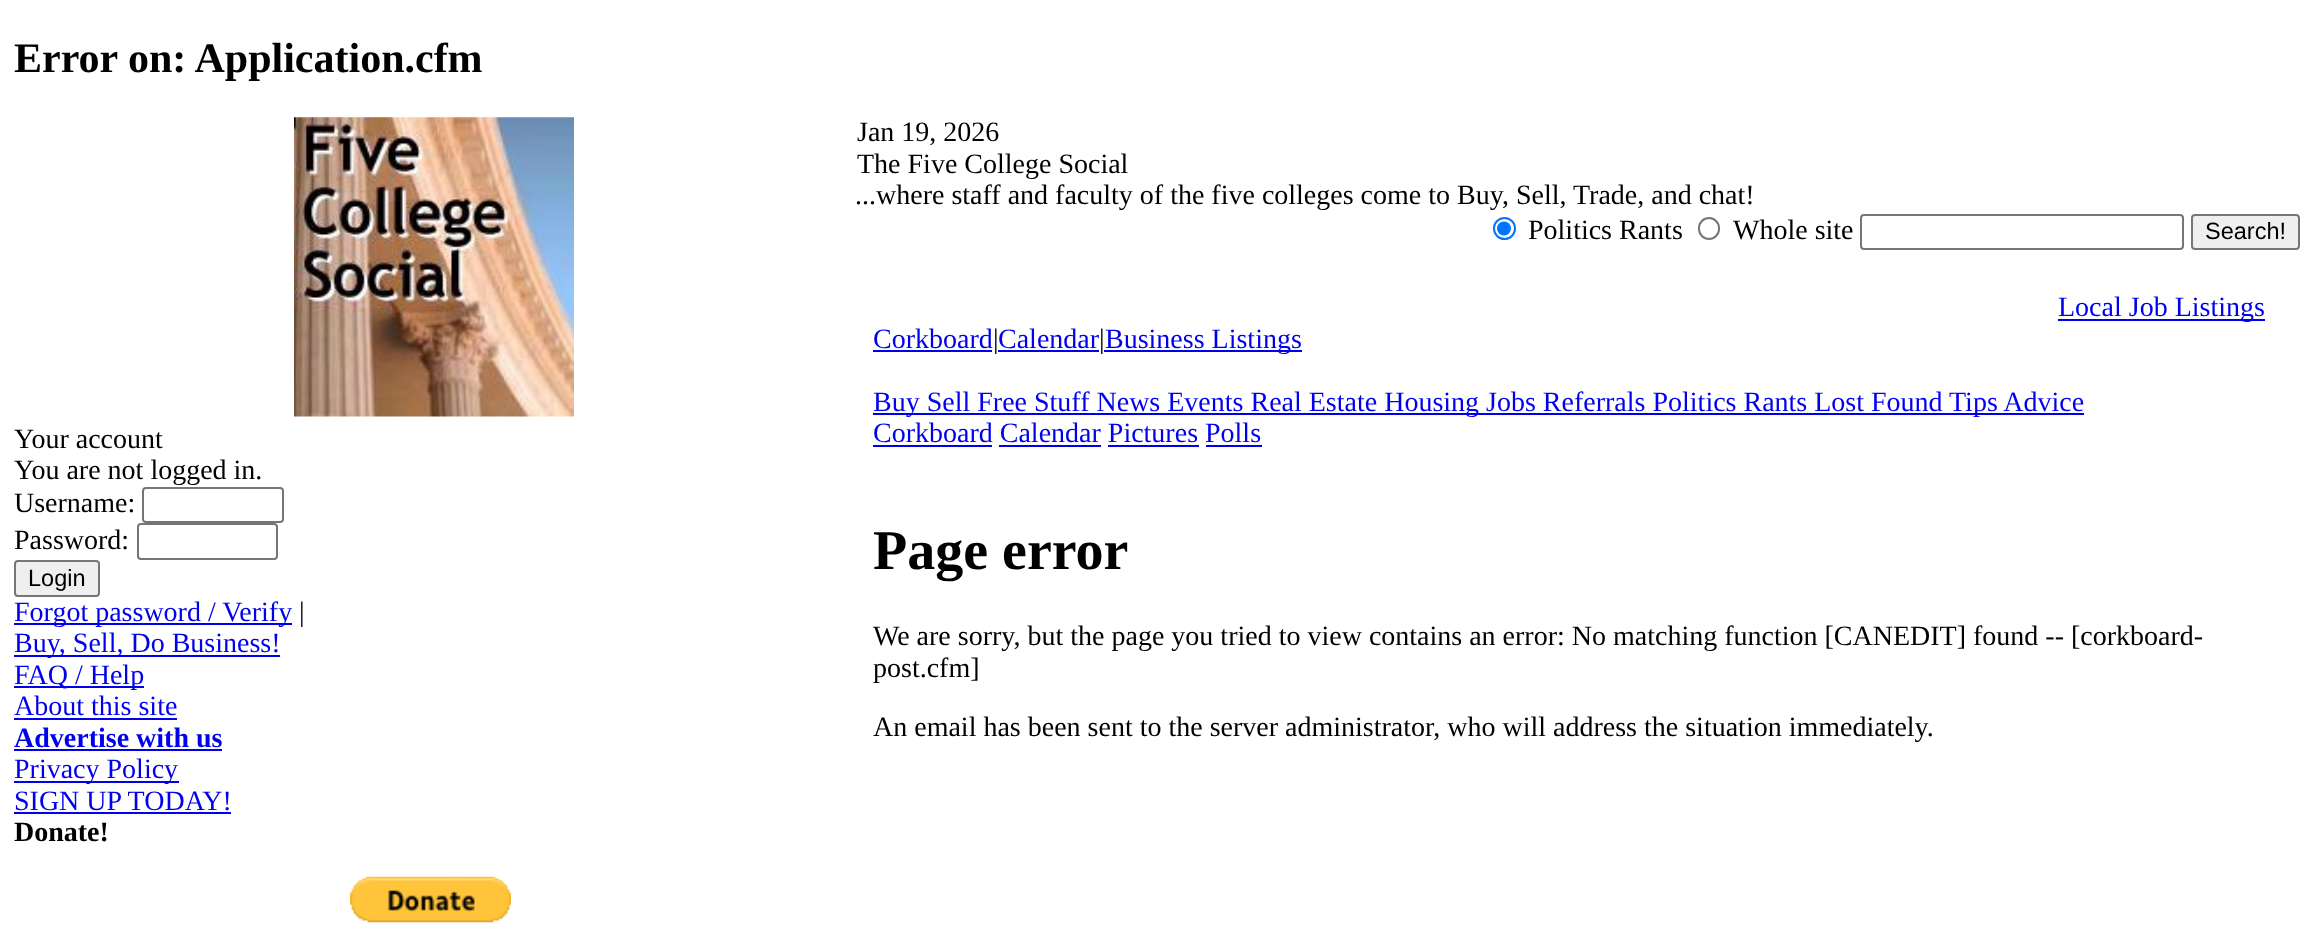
async function draw(canvas) {
  canvas.width = 2313;
  canvas.height = 943;
  const ctx = canvas.getContext('2d');
  ctx.miterLimit = 4;
  ctx.fontKerning = 'normal';
  function label(s, x, y, font, color) {
    ctx.font = font;
    ctx.fillStyle = color;
    ctx.fillText(s, x, y);
  }
  function rect(x, y, w, h, color) {
    ctx.fillStyle = color;
    ctx.fillRect(x, y, w, h);
  }
  async function image(src, x, y, w, h) {
    const img = new Image();
    img.src = src;
    await img.decode();
    ctx.drawImage(img, x, y, w, h);
  }

  rect(0, 0, 2313, 943, '#fff');
  label('Error on: Application.cfm', 14, 72, 'bold 42px Liberation Serif', '#000');
  await image('assets/img1.png', 294, 117, 280, 300);
  label('Your account', 14, 448, '28px Liberation Serif', '#000');
  label('You are not logged in.', 14, 479, '28px Liberation Serif', '#000');
  label('Username:', 14, 512, '28px Liberation Serif', '#000');
  ctx.beginPath();
  ctx.roundRect(143, 488, 140, 34, 3);
  ctx.strokeStyle = '#767676';
  ctx.lineWidth = 2;
  ctx.stroke();
  label('Password:', 14, 549, '28px Liberation Serif', '#000');
  ctx.beginPath();
  ctx.roundRect(138, 524, 139, 35, 3);
  ctx.stroke();
  ctx.fillStyle = '#efefef';
  ctx.beginPath();
  ctx.roundRect(15, 561, 84, 35, 3);
  ctx.fill();
  ctx.stroke();
  label('Login', 28, 586, '23.5px Liberation Sans', '#000');
  rect(14, 623, 278, 2, '#00e');
  label('Forgot password / Verify', 14, 621, '28px Liberation Serif', '#00e');
  label('|', 299, 621, '28px Liberation Serif', '#000');
  rect(14, 655, 266, 2, '#00e');
  label('Buy, Sell, Do Business!', 14, 652, '28px Liberation Serif', '#00e');
  rect(14, 686, 130, 2, '#00e');
  label('FAQ / Help', 14, 684, '28px Liberation Serif', '#00e');
  label('About this site', 14, 715, '28px Liberation Serif', '#00e');
  rect(14, 718, 163, 2, '#00e');
  label('Advertise with us', 14, 747, 'bold 28px Liberation Serif', '#00e');
  rect(14, 749, 208, 2, '#00e');
  rect(14, 781, 165, 2, '#00e');
  label('Privacy Policy', 14, 778, '28px Liberation Serif', '#00e');
  label('SIGN UP TODAY!', 14, 810, '28px Liberation Serif', '#00e');
  rect(14, 812, 217, 2, '#00e');
  label('Donate!', 14, 841, 'bold 28px Liberation Serif', '#000');
  await image('assets/img2.png', 350, 876, 161, 47);
  label('Jan 19, 2026', 857, 141, '28px Liberation Serif', '#000');
  label('The Five College Social', 857, 173, '28px Liberation Serif', '#000');
  label('...where staff and faculty of the five colleges come to Buy, Sell, Trade, and chat!', 855, 204, '28px Liberation Serif', '#000');
  ctx.beginPath();
  ctx.arc(1504.5, 228.5, 10.5, 0, 2 * Math.PI);
  ctx.strokeStyle = '#0075ff';
  ctx.stroke();
  ctx.fillStyle = '#0075ff';
  ctx.beginPath();
  ctx.arc(1504, 228.5, 7, 0, 2 * Math.PI);
  ctx.fill();
  label('Politics Rants', 1528, 239, '28px Liberation Serif', '#000');
  ctx.beginPath();
  ctx.roundRect(1699, 218, 20, 21, 10);
  ctx.strokeStyle = '#767676';
  ctx.stroke();
  label('Whole site', 1733, 239, '28px Liberation Serif', '#000');
  ctx.beginPath();
  ctx.roundRect(1861, 215, 322, 34, 3);
  ctx.stroke();
  ctx.fillStyle = '#efefef';
  ctx.beginPath();
  ctx.roundRect(2192, 215, 107, 34, 3);
  ctx.fill();
  ctx.stroke();
  label('Search!', 2205, 239, '23.5px Liberation Sans', '#000');
  rect(2058, 319, 207, 2, '#00e');
  label('Local Job Listings', 2058, 316, '28px Liberation Serif', '#00e');
  label('Corkboard', 873, 348, '28px Liberation Serif', '#00e');
  rect(873, 350, 119, 2, '#00e');
  label('|', 993, 348, '28px Liberation Serif', '#000');
  label('Calendar', 998, 348, '28px Liberation Serif', '#00e');
  rect(998, 350, 101, 2, '#00e');
  label('|', 1099, 348, '28px Liberation Serif', '#000');
  rect(1104, 350, 198, 2, '#00e');
  label('Business Listings', 1105, 348, '28px Liberation Serif', '#00e');
  rect(873, 413, 1211, 2, '#00e');
  label('Buy Sell Free Stuff News Events Real Estate Housing Jobs Referrals Politics Rants Lost Found', 873, 411, '28px Liberation Serif', '#00e');
  label('Tips Advice', 1949, 411, '28px Liberation Serif', '#00e');
  label('Corkboard Calendar Pictures Polls', 873, 442, '28px Liberation Serif', '#00e');
  rect(873, 445, 119, 2, '#00e');
  rect(999, 445, 102, 2, '#00e');
  rect(1108, 445, 91, 2, '#00e');
  rect(1206, 445, 56, 2, '#00e');
  label('Page error', 873, 569, 'bold 56px Liberation Serif', '#000');
  label('We are sorry, but the page you tried to view contains an error: No matching function [CANEDIT] found -- [corkboard-', 873, 645, '28px Liberation Serif', '#000');
  label('post.cfm]', 873, 677, '28px Liberation Serif', '#000');
  label('An email has been sent to the server administrator, who will address the situation immediately.', 873, 736, '28px Liberation Serif', '#000');
}

draw(document.querySelector('canvas'));
